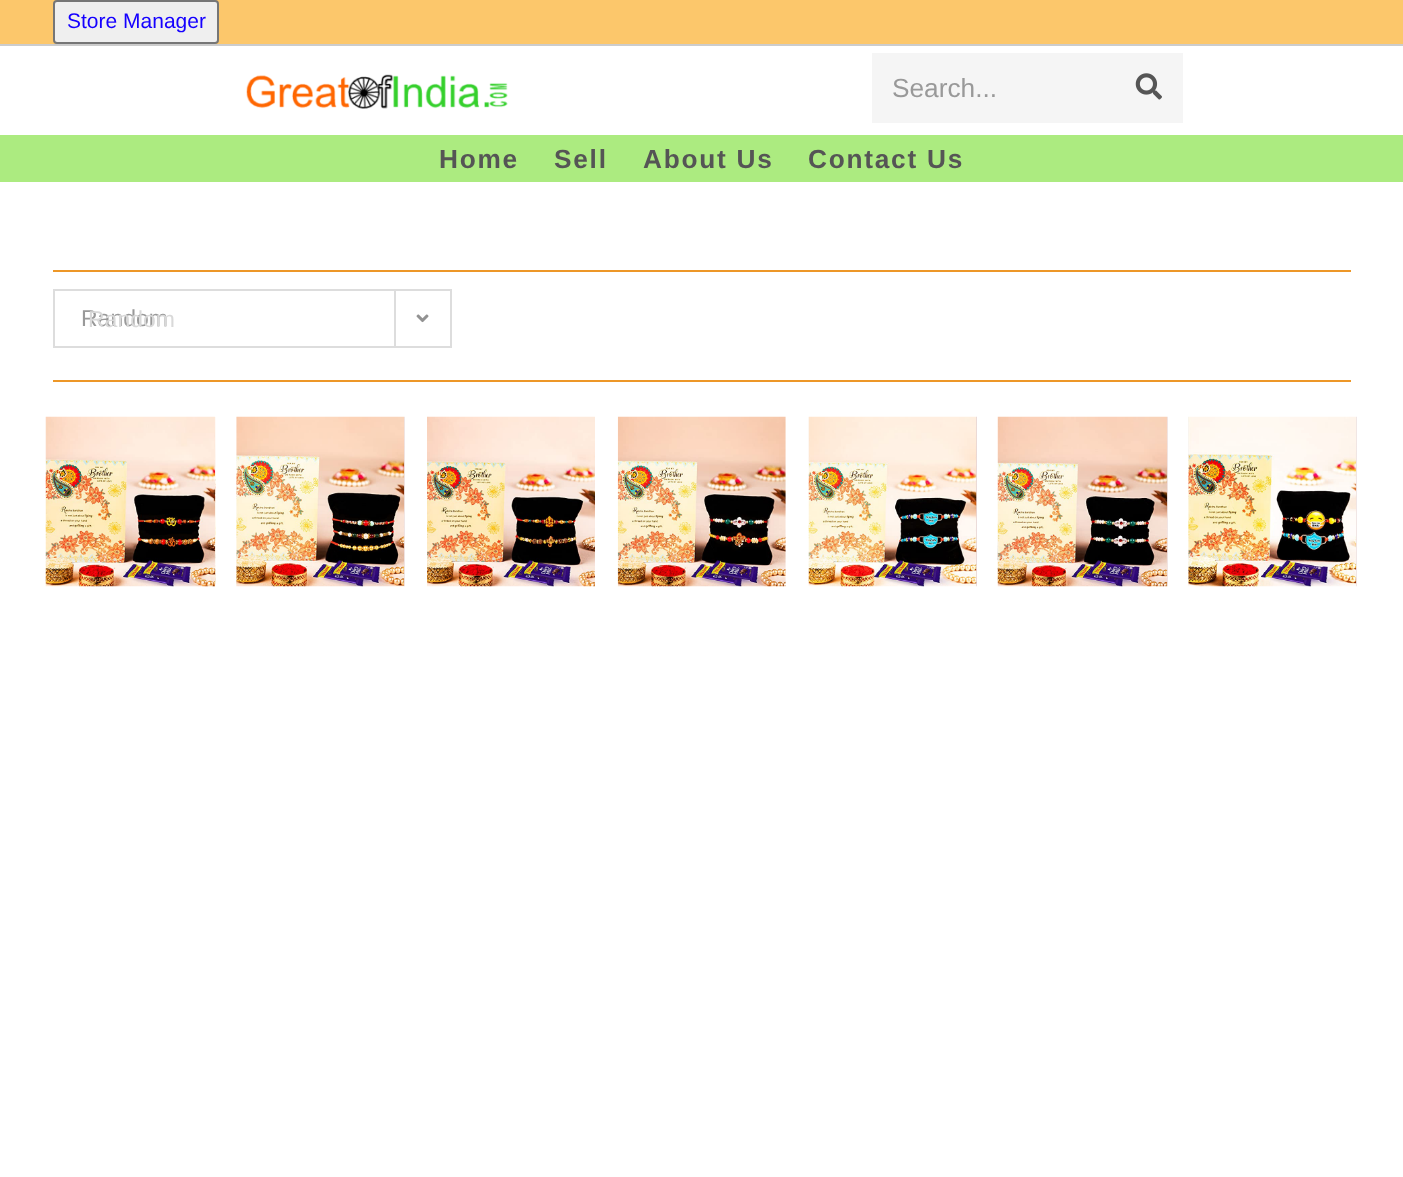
async function draw(canvas) {
  canvas.width = 1403;
  canvas.height = 1177;
  const ctx = canvas.getContext('2d');
  ctx.miterLimit = 4;
  ctx.fontKerning = 'normal';
  function label(s, x, y, font, color) {
    ctx.font = font;
    ctx.fillStyle = color;
    ctx.fillText(s, x, y);
  }
  function rect(x, y, w, h, color) {
    ctx.fillStyle = color;
    ctx.fillRect(x, y, w, h);
  }
  async function image(src, x, y, w, h) {
    const img = new Image();
    img.src = src;
    await img.decode();
    ctx.drawImage(img, x, y, w, h);
  }

  rect(0, 0, 1403, 1177, '#fff');
  rect(0, 0, 1403, 44, '#fcc76b');
  rect(0, 44, 1403, 2, '#ccc');
  ctx.fillStyle = '#efefef';
  ctx.beginPath();
  ctx.roundRect(54, 1, 164, 42, 3);
  ctx.fill();
  ctx.strokeStyle = '#767676';
  ctx.lineWidth = 2;
  ctx.stroke();
  label('Store Manager', 67, 28, '21px Liberation Sans', '#1500ff');
  await image('assets/img1.png', 246, 74, 262, 35);
  rect(872, 53, 311, 70, '#f5f5f5');
  label('Search...', 892, 97, '26.25px Liberation Sans', '#999');
  await image('assets/img2.png', 1135, 73, 27, 27);
  rect(0, 135, 1403, 47, '#aceb80');
  ctx.letterSpacing = '1.75px';
  label('Home', 439, 168, 'bold 26.25px Liberation Sans', '#555');
  label('Sell', 554, 168, 'bold 26.25px Liberation Sans', '#555');
  label('About Us', 643, 168, 'bold 26.25px Liberation Sans', '#555');
  label('Contact Us', 808, 168, 'bold 26.25px Liberation Sans', '#555');
  rect(53, 270, 1298, 2, '#ed9728');
  rect(53, 380, 1298, 2, '#ed9728');
  ctx.strokeStyle = '#ddd';
  ctx.strokeRect(54, 290, 397, 57);
  ctx.letterSpacing = '0px';
  label('Random', 81, 326, '23px Liberation Sans', '#999');
  rect(394, 291, 2, 56, '#ddd');
  await image('assets/img3.png', 416, 314, 13, 9);
  label('Random', 88, 327, '23px Liberation Sans', '#d9d9d9');
  await image('assets/img4.png', 45, 416, 171, 171);
  await image('assets/img5.png', 215, 417, 1, 168);
  await image('assets/img6.png', 236, 416, 169, 171);
  await image('assets/img7.png', 404, 416, 1, 171);
  await image('assets/img8.png', 427, 416, 168, 171);
  await image('assets/img9.png', 617, 416, 169, 171);
  await image('assets/img10.png', 808, 416, 169, 171);
  await image('assets/img11.png', 976, 416, 1, 171);
  await image('assets/img12.png', 997, 416, 171, 171);
  await image('assets/img13.png', 1167, 416, 1, 171);
  await image('assets/img14.png', 1188, 416, 169, 171);
  await image('assets/img15.png', 1356, 416, 1, 171);
}

draw(document.querySelector('canvas'));
